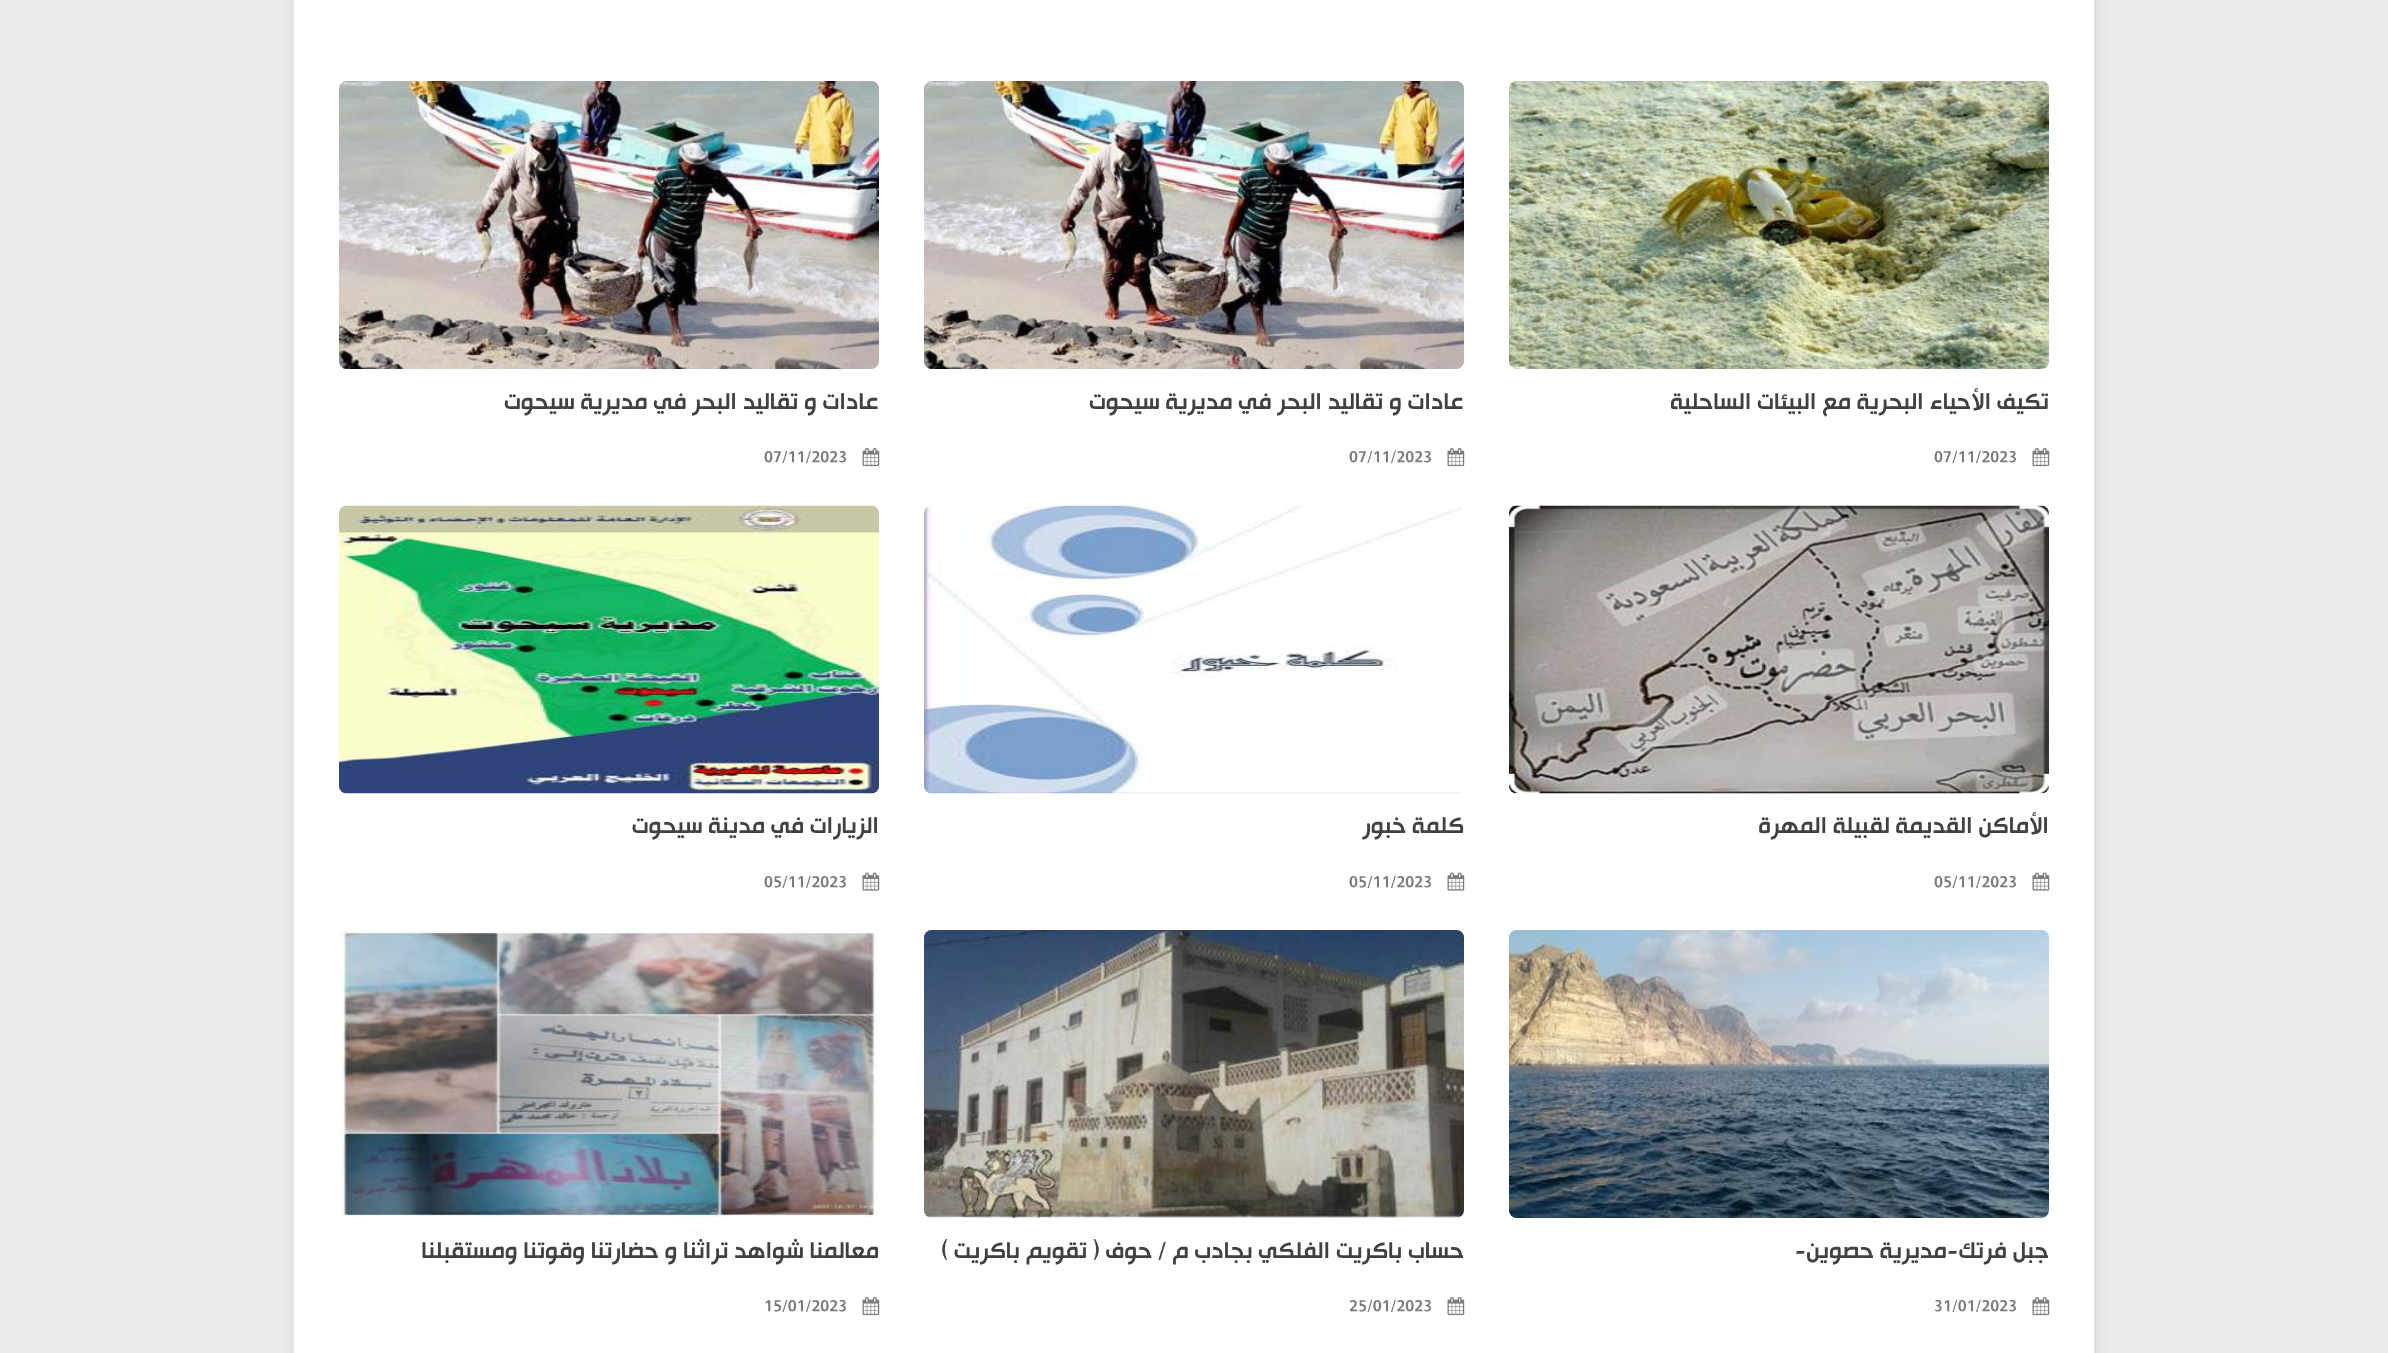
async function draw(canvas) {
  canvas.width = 2388;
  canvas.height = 1353;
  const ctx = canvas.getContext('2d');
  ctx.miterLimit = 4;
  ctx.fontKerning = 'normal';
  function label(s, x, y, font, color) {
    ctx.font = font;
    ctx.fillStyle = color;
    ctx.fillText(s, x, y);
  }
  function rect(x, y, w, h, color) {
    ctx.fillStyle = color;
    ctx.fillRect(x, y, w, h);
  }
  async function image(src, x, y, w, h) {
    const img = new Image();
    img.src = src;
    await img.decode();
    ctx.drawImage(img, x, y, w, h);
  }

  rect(0, 0, 2388, 1353, '#edecec');
  ctx.fillStyle = '#0000001a';
  ctx.filter = 'blur(7.5px)';
  ctx.beginPath();
  ctx.rect(296, -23, 1800, 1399);
  ctx.fill();
  ctx.filter = 'none';
  rect(294, 0, 1800, 1353, '#fff');
  await image('assets/img1.png', 1509, 81, 540, 288);
  ctx.direction = 'rtl';
  label('تكيف الأحياء البحرية مع البيئات الساحلية', 2049, 411, '27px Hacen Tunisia', '#424141');
  await image('assets/img2.png', 2032, 448, 18, 19);
  ctx.direction = 'ltr';
  label('07/11/2023', 1934, 463, '18px Hacen Tunisia', '#7c7b7b');
  await image('assets/img3.png', 924, 81, 540, 288);
  ctx.direction = 'rtl';
  label('عادات و تقاليد البحر في مديرية سيحوت', 1464, 411, '27px Hacen Tunisia', '#424141');
  await image('assets/img2.png', 1447, 448, 18, 19);
  ctx.direction = 'ltr';
  label('07/11/2023', 1349, 463, '18px Hacen Tunisia', '#7c7b7b');
  await image('assets/img4.png', 339, 81, 540, 288);
  ctx.direction = 'rtl';
  label('عادات و تقاليد البحر في مديرية سيحوت', 879, 411, '27px Hacen Tunisia', '#424141');
  await image('assets/img2.png', 862, 448, 18, 19);
  ctx.direction = 'ltr';
  label('07/11/2023', 764, 463, '18px Hacen Tunisia', '#7c7b7b');
  await image('assets/img5.png', 1509, 505, 540, 289);
  ctx.direction = 'rtl';
  label('الأماكن القديمة لقبيلة المهرة', 2049, 835, '27px Hacen Tunisia', '#424141');
  await image('assets/img6.png', 2032, 872, 18, 19);
  ctx.direction = 'ltr';
  label('05/11/2023', 1934, 888, '18px Hacen Tunisia', '#7c7b7b');
  await image('assets/img7.png', 924, 505, 540, 289);
  ctx.direction = 'rtl';
  label('كلمة خبور', 1464, 835, '27px Hacen Tunisia', '#424141');
  await image('assets/img6.png', 1447, 872, 18, 19);
  ctx.direction = 'ltr';
  label('05/11/2023', 1349, 888, '18px Hacen Tunisia', '#7c7b7b');
  await image('assets/img8.png', 339, 505, 540, 289);
  ctx.direction = 'rtl';
  label('الزيارات في مدينة سيحوت', 879, 835, '27px Hacen Tunisia', '#424141');
  await image('assets/img6.png', 862, 872, 18, 19);
  ctx.direction = 'ltr';
  label('05/11/2023', 764, 888, '18px Hacen Tunisia', '#7c7b7b');
  await image('assets/img9.png', 1509, 930, 540, 288);
  ctx.direction = 'rtl';
  label('جبل فرتك-مديرية حصوين-', 2049, 1260, '27px Hacen Tunisia', '#424141');
  await image('assets/img2.png', 2032, 1297, 18, 19);
  ctx.direction = 'ltr';
  label('31/01/2023', 1934, 1312, '18px Hacen Tunisia', '#7c7b7b');
  await image('assets/img10.png', 924, 930, 540, 288);
  ctx.direction = 'rtl';
  label('حساب باكريت الفلكي بجادب م / حوف ( تقويم باكريت )', 1464, 1260, '27px Hacen Tunisia', '#424141');
  await image('assets/img2.png', 1447, 1297, 18, 19);
  ctx.direction = 'ltr';
  label('25/01/2023', 1349, 1312, '18px Hacen Tunisia', '#7c7b7b');
  await image('assets/img11.png', 339, 930, 540, 288);
  ctx.direction = 'rtl';
  label('معالمنا شواهد تراثنا و حضارتنا وقوتنا ومستقبلنا', 879, 1260, '27px Hacen Tunisia', '#424141');
  await image('assets/img2.png', 862, 1297, 18, 19);
  ctx.direction = 'ltr';
  label('15/01/2023', 764, 1312, '18px Hacen Tunisia', '#7c7b7b');
}

draw(document.querySelector('canvas'));
